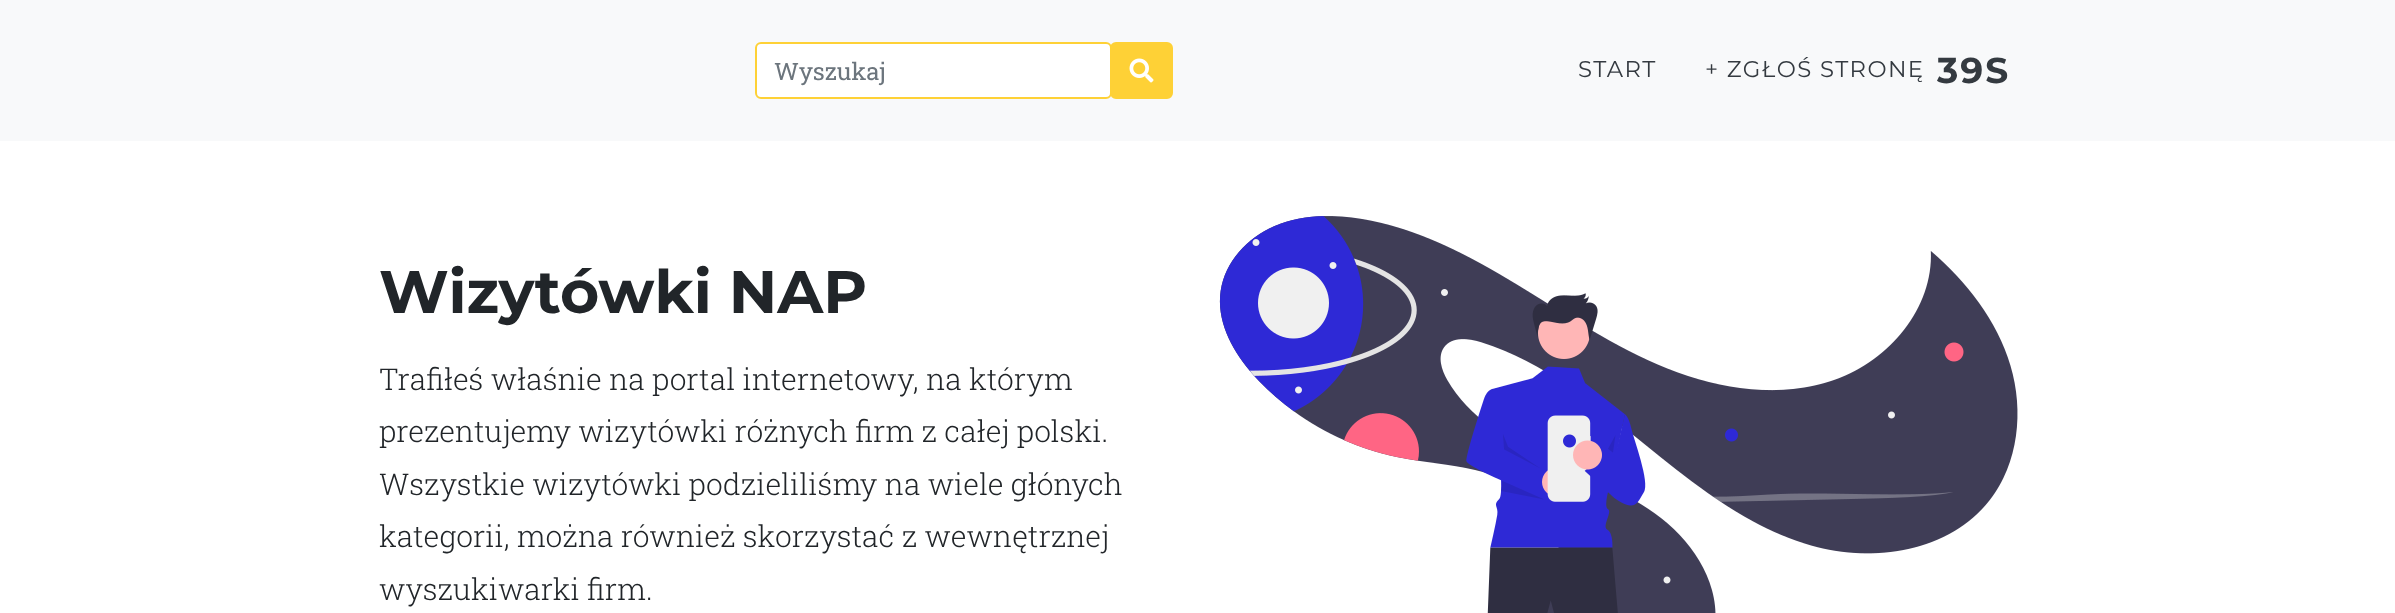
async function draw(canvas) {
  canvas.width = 2395;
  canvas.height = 613;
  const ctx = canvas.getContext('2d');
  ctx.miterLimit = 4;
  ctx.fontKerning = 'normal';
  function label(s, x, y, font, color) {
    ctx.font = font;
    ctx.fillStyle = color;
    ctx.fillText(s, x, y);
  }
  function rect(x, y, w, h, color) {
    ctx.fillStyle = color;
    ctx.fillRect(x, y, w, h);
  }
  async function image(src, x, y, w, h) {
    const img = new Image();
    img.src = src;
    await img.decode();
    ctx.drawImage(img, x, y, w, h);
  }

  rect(0, 0, 2395, 613, '#fff');
  rect(0, 0, 2395, 141, '#f8f9fa');
  ctx.fillStyle = '#fff';
  ctx.beginPath();
  ctx.roundRect(756, 43, 355, 55, 5);
  ctx.fill();
  ctx.strokeStyle = '#fed136';
  ctx.lineWidth = 2;
  ctx.stroke();
  label('Wyszukaj', 774, 80, '24px Roboto Slab', '#6c757d');
  ctx.fillStyle = '#fed136';
  ctx.beginPath();
  ctx.roundRect(1111, 43, 61, 55, 5);
  ctx.fill();
  ctx.stroke();
  await image('assets/img1.png', 1129, 58, 25, 25);
  ctx.letterSpacing = '1.4px';
  label('START', 1578, 77, '22.75px Montserrat', '#343a40');
  label('+ ZGŁOŚ STRONĘ', 1705, 77, '22.75px Montserrat', '#343a40');
  ctx.letterSpacing = '2px';
  label('39S', 1937, 83, 'bold 36px Montserrat', '#343a40');
  ctx.letterSpacing = '0px';
  label('Wizytówki NAP', 379, 313, 'bold 60px Montserrat', '#212529');
  label('Trafiłeś właśnie na portal internetowy, na którym', 379, 390, '300 30px Roboto Slab', '#212529');
  label('prezentujemy wizytówki różnych firm z całej polski.', 379, 442, '300 30px Roboto Slab', '#212529');
  label('Wszystkie wizytówki podzieliliśmy na wiele głónych', 379, 495, '300 30px Roboto Slab', '#212529');
  label('kategorii, można również skorzystać z wewnętrznej', 379, 547, '300 30px Roboto Slab', '#212529');
  label('wyszukiwarki firm.', 379, 600, '300 30px Roboto Slab', '#212529');
  await image('assets/img2.png', 1219, 216, 799, 397);
}

draw(document.querySelector('canvas'));
